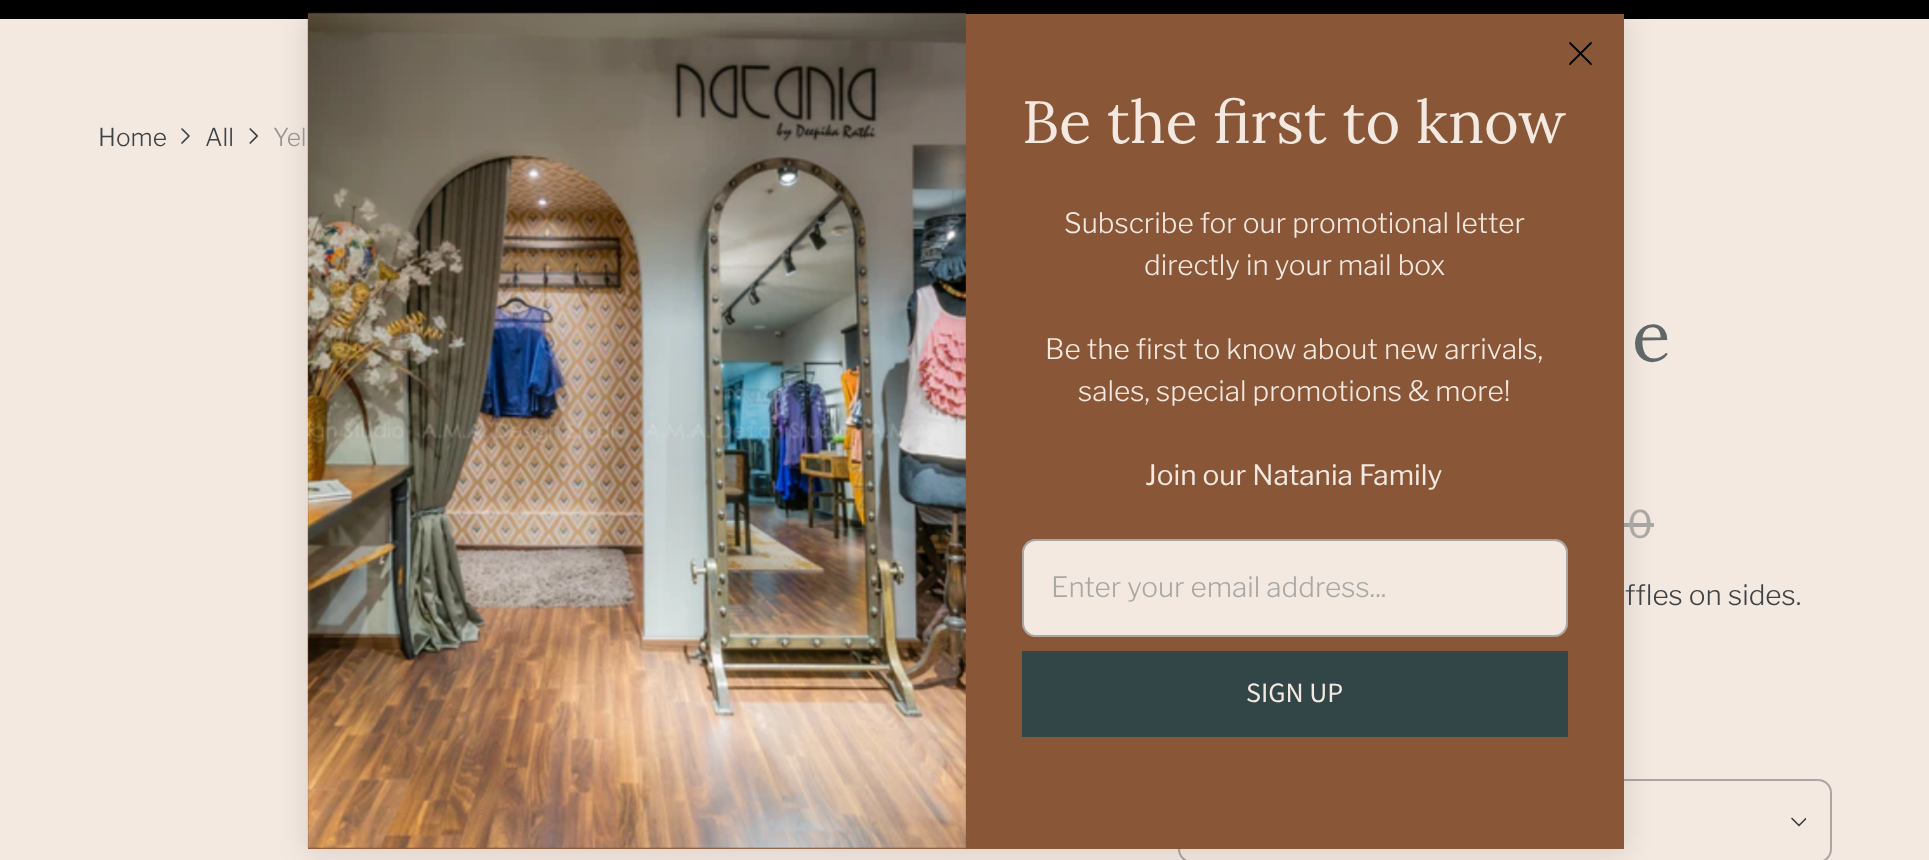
async function draw(canvas) {
  canvas.width = 1929;
  canvas.height = 860;
  const ctx = canvas.getContext('2d');
  ctx.miterLimit = 4;
  ctx.fontKerning = 'normal';
  function label(s, x, y, font, color) {
    ctx.font = font;
    ctx.fillStyle = color;
    ctx.fillText(s, x, y);
  }
  function rect(x, y, w, h, color) {
    ctx.fillStyle = color;
    ctx.fillRect(x, y, w, h);
  }
  function roundedRect(x, y, w, h, r, color) {
    ctx.fillStyle = color;
    ctx.beginPath();
    ctx.roundRect(x, y, w, h, r);
    ctx.fill();
  }
  async function image(src, x, y, w, h) {
    const img = new Image();
    img.src = src;
    await img.decode();
    ctx.drawImage(img, x, y, w, h);
  }
  let path;

  rect(0, 0, 1929, 860, '#f4e9e1');
  rect(0, 0, 1929, 19, '#000');
  rect(1624, 523, 30, 4, '#aaa8a5');
  ctx.beginPath();
  ctx.roundRect(1179, 780, 652, 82, 13);
  ctx.strokeStyle = '#aba6a3';
  ctx.lineWidth = 2;
  ctx.stroke();
  ctx.fillStyle = '#0000001a';
  ctx.filter = 'blur(14px)';
  ctx.beginPath();
  ctx.rect(306, 16, 1320, 838);
  ctx.fill();
  ctx.filter = 'none';
  rect(308, 14, 1316, 835, '#895737');
  await image('assets/img1.png', 307, 12, 659, 837);
  path = new Path2D('M1570 64L1591 43M1591 64L1570 43');
  ctx.strokeStyle = '#000';
  ctx.lineWidth = 1.8;
  ctx.lineCap = 'round';
  ctx.lineJoin = 'round';
  ctx.stroke(path);
  label('Be the first to know', 1022, 143, '59.5px Lora', '#f4e9e1');
  label('Subscribe for our promotional letter', 1064, 233, '300 28px Libre Franklin', '#f4e9e1');
  label('directly in your mail box', 1144, 275, '300 28px Libre Franklin', '#f4e9e1');
  label('Be the first to know about new arrivals,', 1045, 359, '300 28px Libre Franklin', '#f4e9e1');
  label('sales, special promotions & more!', 1078, 401, '300 28px Libre Franklin', '#f4e9e1');
  label('Join our Natania Family', 1145, 485, '28px Libre Franklin', '#f4e9e1');
  roundedRect(1022, 539, 546, 98, 14, '#f4e9e1');
  ctx.beginPath();
  ctx.roundRect(1023, 540, 544, 96, 13);
  ctx.strokeStyle = '#3d424666';
  ctx.lineWidth = 2;
  ctx.lineJoin = 'miter';
  ctx.stroke();
  label('Enter your email address...', 1051, 597, '300 28px Libre Franklin', '#aaa8a5');
  rect(1022, 651, 546, 86, '#324648');
  label('SIGN UP', 1246, 702, '28px Source Sans Pro', '#f4e9e1');
  label('Home', 98, 146, '300 24.5px Libre Franklin', '#3d4246');
  await image('assets/img2.png', 181, 128, 9, 16);
  label('All', 205, 146, '300 24.5px Libre Franklin', '#3d4246');
  await image('assets/img3.png', 249, 128, 9, 16);
  label('Yel', 273, 146, '300 24.5px Libre Franklin', '#999694');
  label('e', 1632, 361, '71px Lora', '#5f6769');
  label('0', 1627, 538, '38px Libre Franklin', '#aaa8a5');
  label('ffles on sides.', 1625, 605, '300 28px Libre Franklin', '#3d4246');
  await image('assets/img4.png', 1791, 817, 15, 10);
}

draw(document.querySelector('canvas'));
